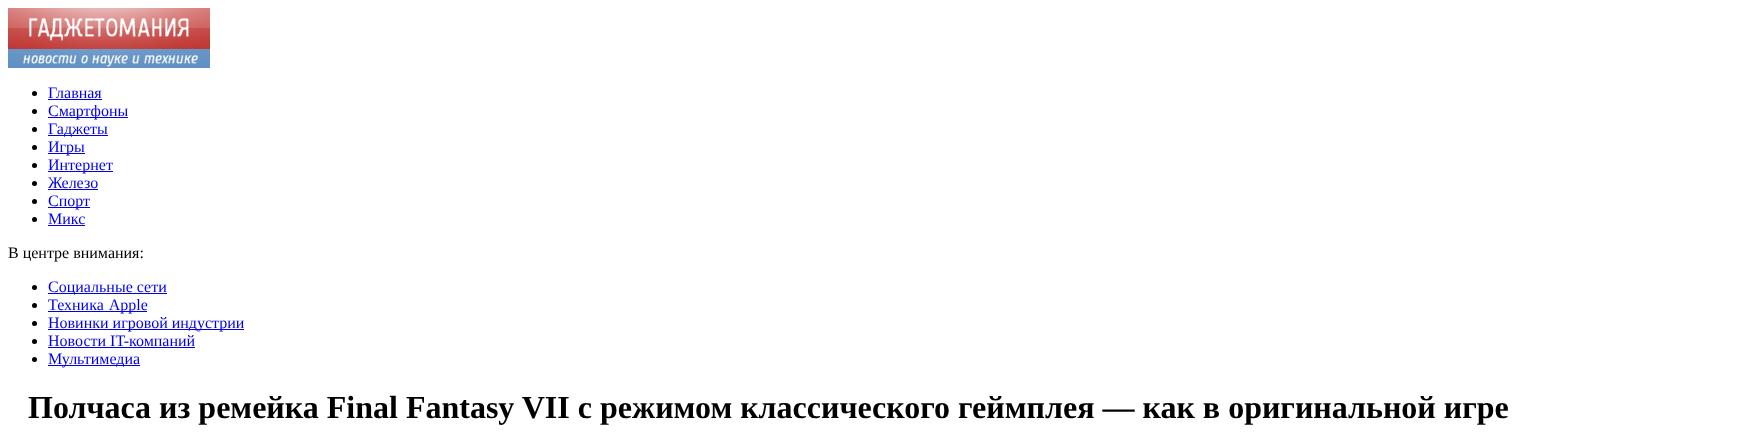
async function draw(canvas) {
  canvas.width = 1747;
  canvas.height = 436;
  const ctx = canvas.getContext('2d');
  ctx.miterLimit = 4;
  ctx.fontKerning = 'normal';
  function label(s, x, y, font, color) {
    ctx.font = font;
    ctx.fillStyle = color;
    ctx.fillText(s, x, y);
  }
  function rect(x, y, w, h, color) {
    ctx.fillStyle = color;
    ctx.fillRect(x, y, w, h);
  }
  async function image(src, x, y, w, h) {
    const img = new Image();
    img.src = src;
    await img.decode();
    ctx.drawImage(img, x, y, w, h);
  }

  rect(0, 0, 1747, 436, '#fff');
  await image('assets/img1.png', 8, 8, 202, 60);
  ctx.fillStyle = '#000';
  ctx.beginPath();
  ctx.arc(34.5, 93.5, 2.5, 0, 2 * Math.PI);
  ctx.fill();
  label('Главная', 48, 98, '16px Liberation Serif', '#00e');
  rect(48, 99, 54, 1, '#00e');
  ctx.fillStyle = '#000';
  ctx.beginPath();
  ctx.arc(34.5, 111.5, 2.5, 0, 2 * Math.PI);
  ctx.fill();
  rect(48, 117, 80, 1, '#00e');
  label('Смартфоны', 48, 116, '16px Liberation Serif', '#00e');
  ctx.fillStyle = '#000';
  ctx.beginPath();
  ctx.arc(34.5, 129.5, 2.5, 0, 2 * Math.PI);
  ctx.fill();
  rect(48, 135, 60, 1, '#00e');
  label('Гаджеты', 48, 134, '16px Liberation Serif', '#00e');
  ctx.fillStyle = '#000';
  ctx.beginPath();
  ctx.arc(34.5, 147.5, 2.5, 0, 2 * Math.PI);
  ctx.fill();
  rect(48, 153, 37, 1, '#00e');
  label('Игры', 48, 152, '16px Liberation Serif', '#00e');
  ctx.fillStyle = '#000';
  ctx.beginPath();
  ctx.arc(34.5, 165.5, 2.5, 0, 2 * Math.PI);
  ctx.fill();
  rect(48, 171, 65, 1, '#00e');
  label('Интернет', 48, 170, '16px Liberation Serif', '#00e');
  ctx.fillStyle = '#000';
  ctx.beginPath();
  ctx.arc(34.5, 183.5, 2.5, 0, 2 * Math.PI);
  ctx.fill();
  label('Железо', 48, 188, '16px Liberation Serif', '#00e');
  rect(48, 189, 50, 1, '#00e');
  ctx.fillStyle = '#000';
  ctx.beginPath();
  ctx.arc(34.5, 201.5, 2.5, 0, 2 * Math.PI);
  ctx.fill();
  rect(48, 207, 42, 1, '#00e');
  label('Спорт', 48, 206, '16px Liberation Serif', '#00e');
  ctx.fillStyle = '#000';
  ctx.beginPath();
  ctx.arc(34.5, 219.5, 2.5, 0, 2 * Math.PI);
  ctx.fill();
  label('Микс', 48, 224, '16px Liberation Serif', '#00e');
  rect(48, 225, 37, 1, '#00e');
  label('В центре внимания:', 8, 258, '16px Liberation Serif', '#000');
  ctx.beginPath();
  ctx.arc(34.5, 287.5, 2.5, 0, 2 * Math.PI);
  ctx.fill();
  rect(48, 293, 119, 1, '#00e');
  label('Социальные сети', 48, 292, '16px Liberation Serif', '#00e');
  ctx.fillStyle = '#000';
  ctx.beginPath();
  ctx.arc(34.5, 305.5, 2.5, 0, 2 * Math.PI);
  ctx.fill();
  rect(48, 311, 99, 1, '#00e');
  ctx.wordSpacing = '1px';
  label('Техника Apple', 48, 310, '16px Liberation Serif', '#00e');
  ctx.fillStyle = '#000';
  ctx.beginPath();
  ctx.arc(34.5, 323.5, 2.5, 0, 2 * Math.PI);
  ctx.fill();
  rect(48, 329, 196, 1, '#00e');
  ctx.wordSpacing = '0px';
  label('Новинки игровой индустрии', 48, 328, '16px Liberation Serif', '#00e');
  ctx.fillStyle = '#000';
  ctx.beginPath();
  ctx.arc(34.5, 341.5, 2.5, 0, 2 * Math.PI);
  ctx.fill();
  label('Новости IT-компаний', 48, 346, '16px Liberation Serif', '#00e');
  rect(48, 347, 147, 1, '#00e');
  ctx.fillStyle = '#000';
  ctx.beginPath();
  ctx.arc(34.5, 359.5, 2.5, 0, 2 * Math.PI);
  ctx.fill();
  rect(48, 365, 92, 1, '#00e');
  label('Мультимедиа', 48, 364, '16px Liberation Serif', '#00e');
  label('Полчаса из ремейка Final Fantasy VII с режимом классического геймплея — как в оригинальной игре', 28, 418, 'bold 32px Liberation Serif', '#000');
}

draw(document.querySelector('canvas'));
